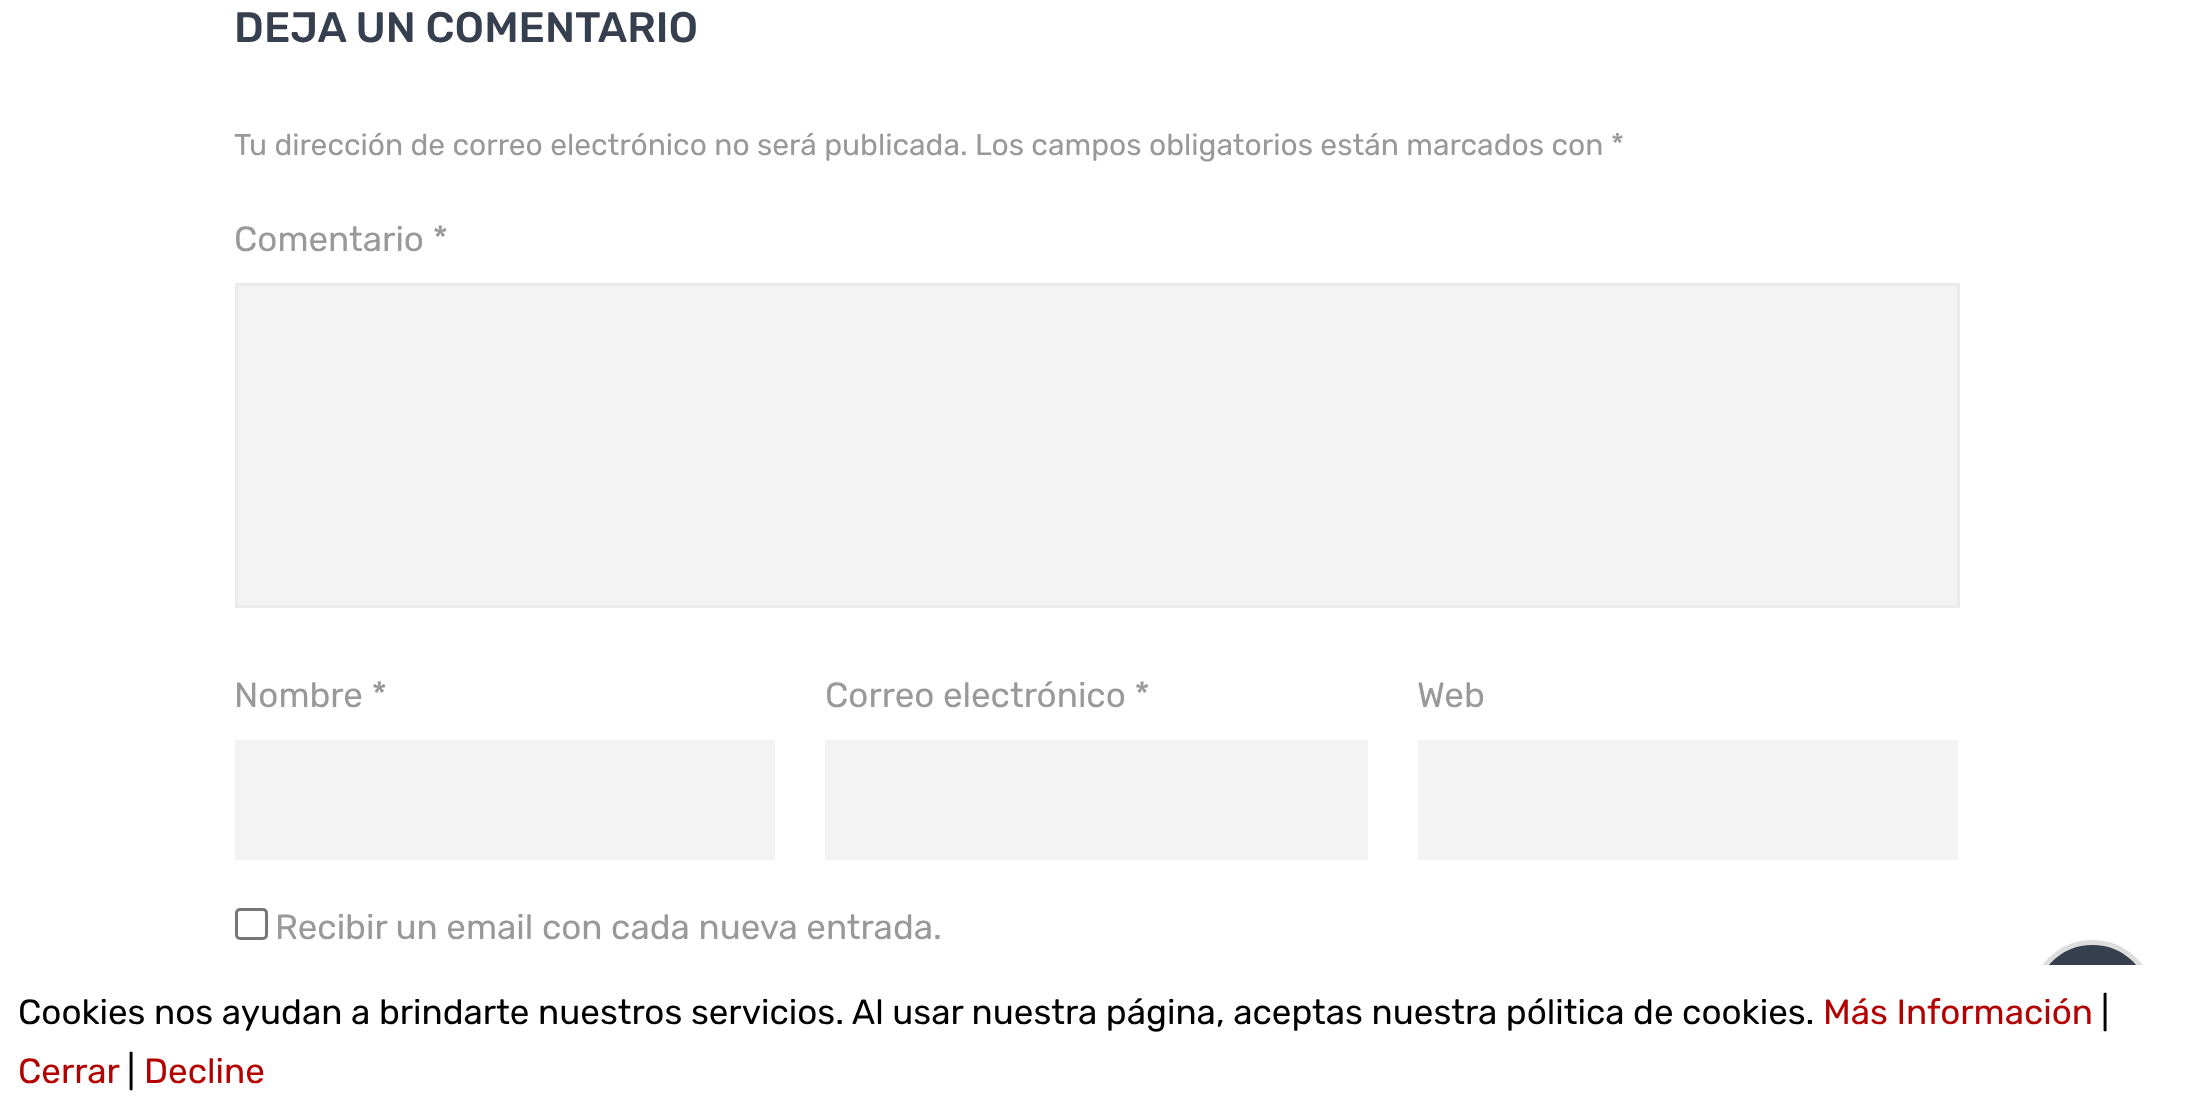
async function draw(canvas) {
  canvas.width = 2191;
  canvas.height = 1119;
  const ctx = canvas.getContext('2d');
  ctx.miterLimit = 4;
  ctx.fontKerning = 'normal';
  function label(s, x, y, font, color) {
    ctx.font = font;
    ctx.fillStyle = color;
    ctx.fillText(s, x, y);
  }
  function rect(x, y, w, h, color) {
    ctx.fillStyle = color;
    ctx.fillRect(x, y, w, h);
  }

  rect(0, 0, 2191, 1119, '#fff');
  label('DEJA UN COMENTARIO', 234, 42, '500 42.5px Rubik', '#363f4d');
  label('Tu dirección de correo electrónico no será publicada. Los campos obligatorios están marcados con *', 234, 155, '30px Rubik', '#999');
  label('Comentario *', 234, 251, '35px Rubik', '#999');
  ctx.fillStyle = '#f3f3f3';
  ctx.beginPath();
  ctx.rect(236.5, 284.5, 1722, 322);
  ctx.fill();
  ctx.strokeStyle = '#ebebeb';
  ctx.lineWidth = 3;
  ctx.stroke();
  label('Nombre *', 234, 707, '35px Rubik', '#999');
  rect(235, 740, 540, 120, '#f3f3f3');
  label('Correo electrónico *', 825, 707, '35px Rubik', '#999');
  rect(825, 740, 543, 120, '#f3f3f3');
  label('Web', 1417, 707, '35px Rubik', '#999');
  rect(1418, 740, 540, 120, '#f3f3f3');
  ctx.beginPath();
  ctx.roundRect(236.5, 909.5, 30, 29, 3.5);
  ctx.strokeStyle = '#767676';
  ctx.stroke();
  label('Recibir un email con cada nueva entrada.', 275, 939, '35px Rubik', '#999');
  ctx.fillStyle = '#363f4d';
  ctx.beginPath();
  ctx.arc(2092.5, 1002.5, 60, 0, 2 * Math.PI);
  ctx.fill();
  ctx.strokeStyle = '#ddd';
  ctx.lineWidth = 5;
  ctx.stroke();
  rect(2030, 965, 125, 100, '#fff');
  label('Cookies nos ayudan a brindarte nuestros servicios. Al usar nuestra página, aceptas nuestra pólitica de cookies.', 18, 1024, '35px Rubik', '#000');
  label('Más Información', 1823, 1024, '35px Rubik', '#b30000');
  label('|', 2101, 1024, '35px Rubik', '#000');
  label('Cerrar', 18, 1083, '35px Rubik', '#b30000');
  label('|', 127, 1083, '35px Rubik', '#000');
  label('Decline', 144, 1083, '35px Rubik', '#b30000');
}

draw(document.querySelector('canvas'));
